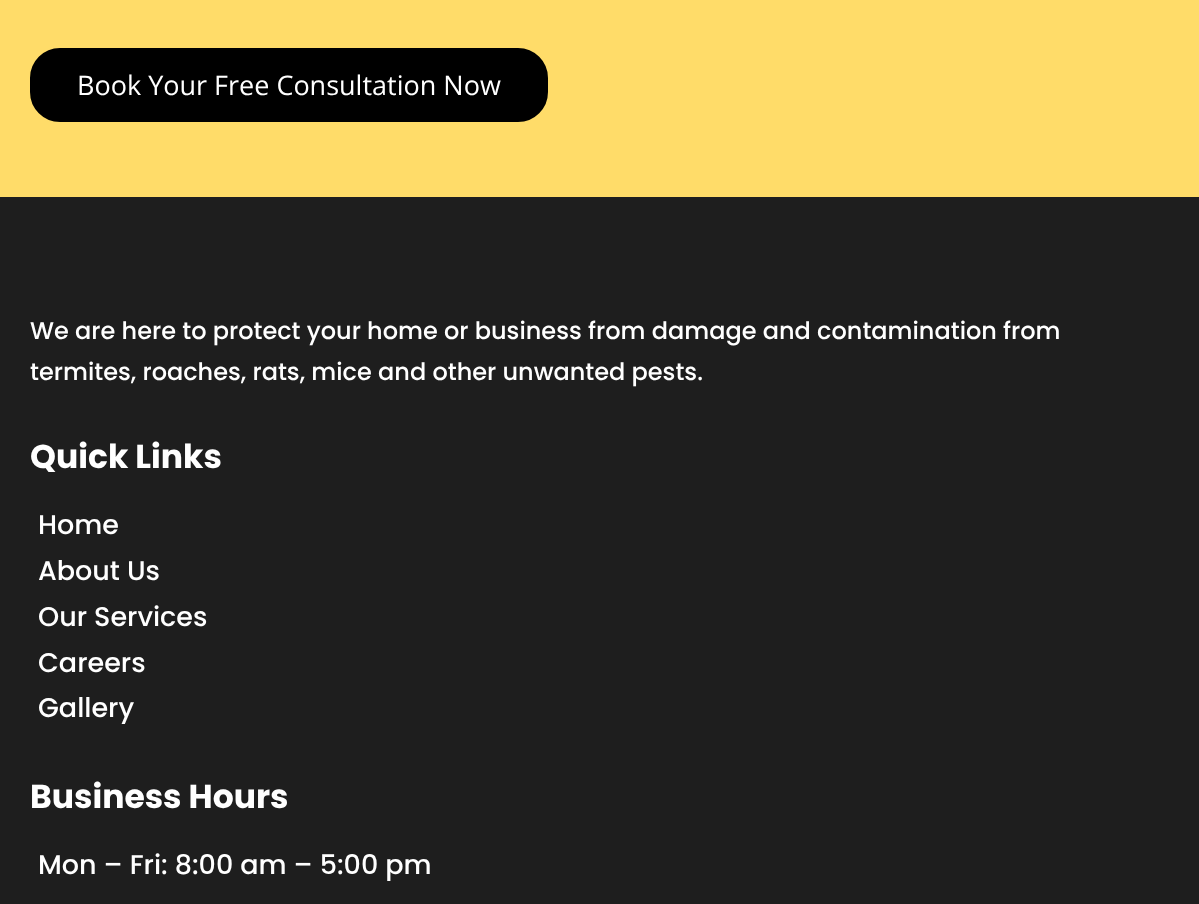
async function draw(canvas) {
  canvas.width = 1199;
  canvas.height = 904;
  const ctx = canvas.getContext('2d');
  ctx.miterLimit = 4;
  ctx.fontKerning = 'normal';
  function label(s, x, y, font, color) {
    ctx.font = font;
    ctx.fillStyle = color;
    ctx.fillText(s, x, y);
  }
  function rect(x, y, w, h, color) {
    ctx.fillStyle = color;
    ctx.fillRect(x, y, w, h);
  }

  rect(0, 0, 1199, 904, '#ffdc69');
  ctx.fillStyle = '#000';
  ctx.beginPath();
  ctx.roundRect(31, 49, 516, 72, 29);
  ctx.fill();
  ctx.strokeStyle = '#000';
  ctx.lineWidth = 2;
  ctx.stroke();
  label('Book Your Free Consultation Now', 77, 95, '27px Open Sans', '#fff');
  rect(0, 197, 1199, 707, '#1e1e1e');
  label('We are here to protect your home or business from damage and contamination from', 30, 339, '500 24px Poppins', '#fff');
  label('termites, roaches, rats, mice and other unwanted pests.', 30, 380, '500 24px Poppins', '#fff');
  label('Quick Links', 30, 468, 'bold 33px Poppins', '#fff');
  label('Home', 38, 534, '500 27px Poppins', '#fff');
  label('About Us', 38, 580, '500 27px Poppins', '#fff');
  label('Our Services', 38, 626, '500 27px Poppins', '#fff');
  label('Careers', 38, 672, '500 27px Poppins', '#fff');
  label('Gallery', 38, 717, '500 27px Poppins', '#fff');
  label('Business Hours', 30, 808, 'bold 33px Poppins', '#fff');
  label('Mon – Fri: 8:00 am – 5:00 pm', 38, 874, '500 27px Poppins', '#fff');
}

draw(document.querySelector('canvas'));
